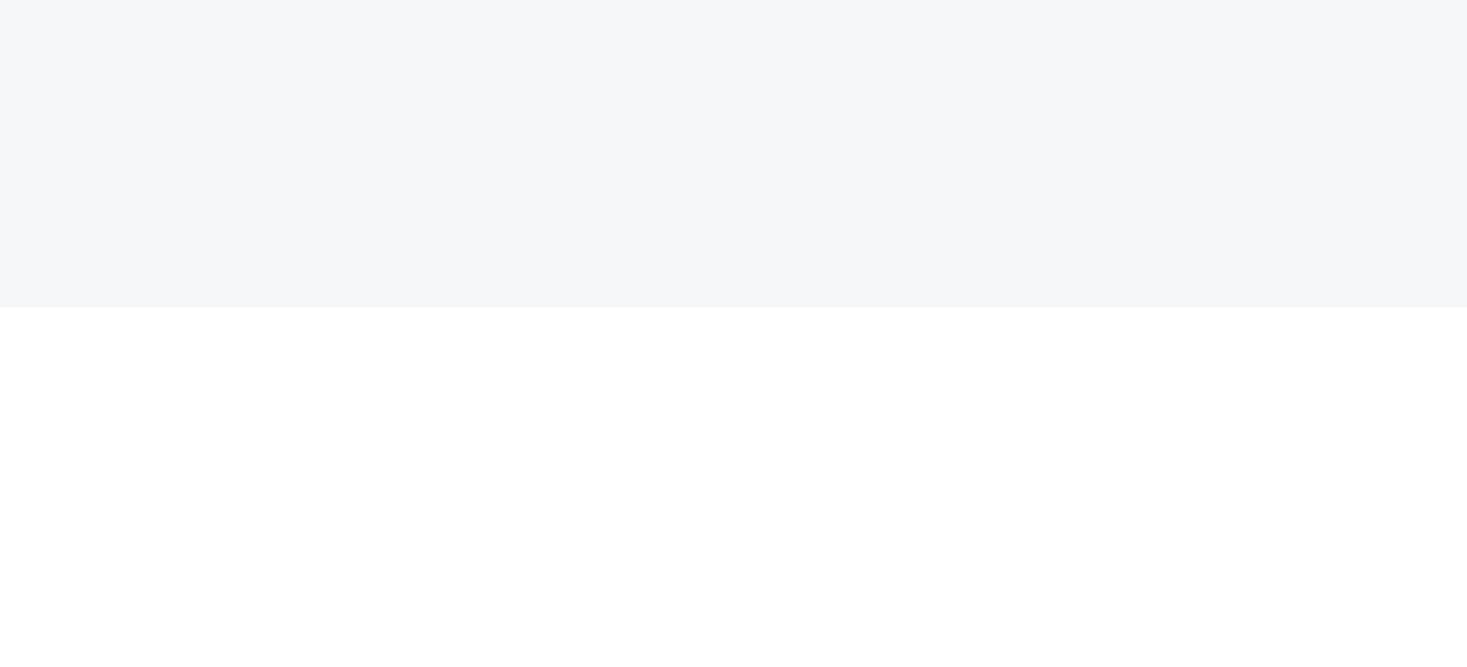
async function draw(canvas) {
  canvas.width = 1467;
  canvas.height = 667;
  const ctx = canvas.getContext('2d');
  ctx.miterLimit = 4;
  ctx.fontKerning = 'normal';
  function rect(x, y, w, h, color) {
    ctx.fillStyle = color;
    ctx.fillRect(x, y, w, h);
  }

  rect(0, 0, 1467, 667, '#fff');
  rect(0, 0, 1467, 307, '#f5f7f9');
}

draw(document.querySelector('canvas'));
